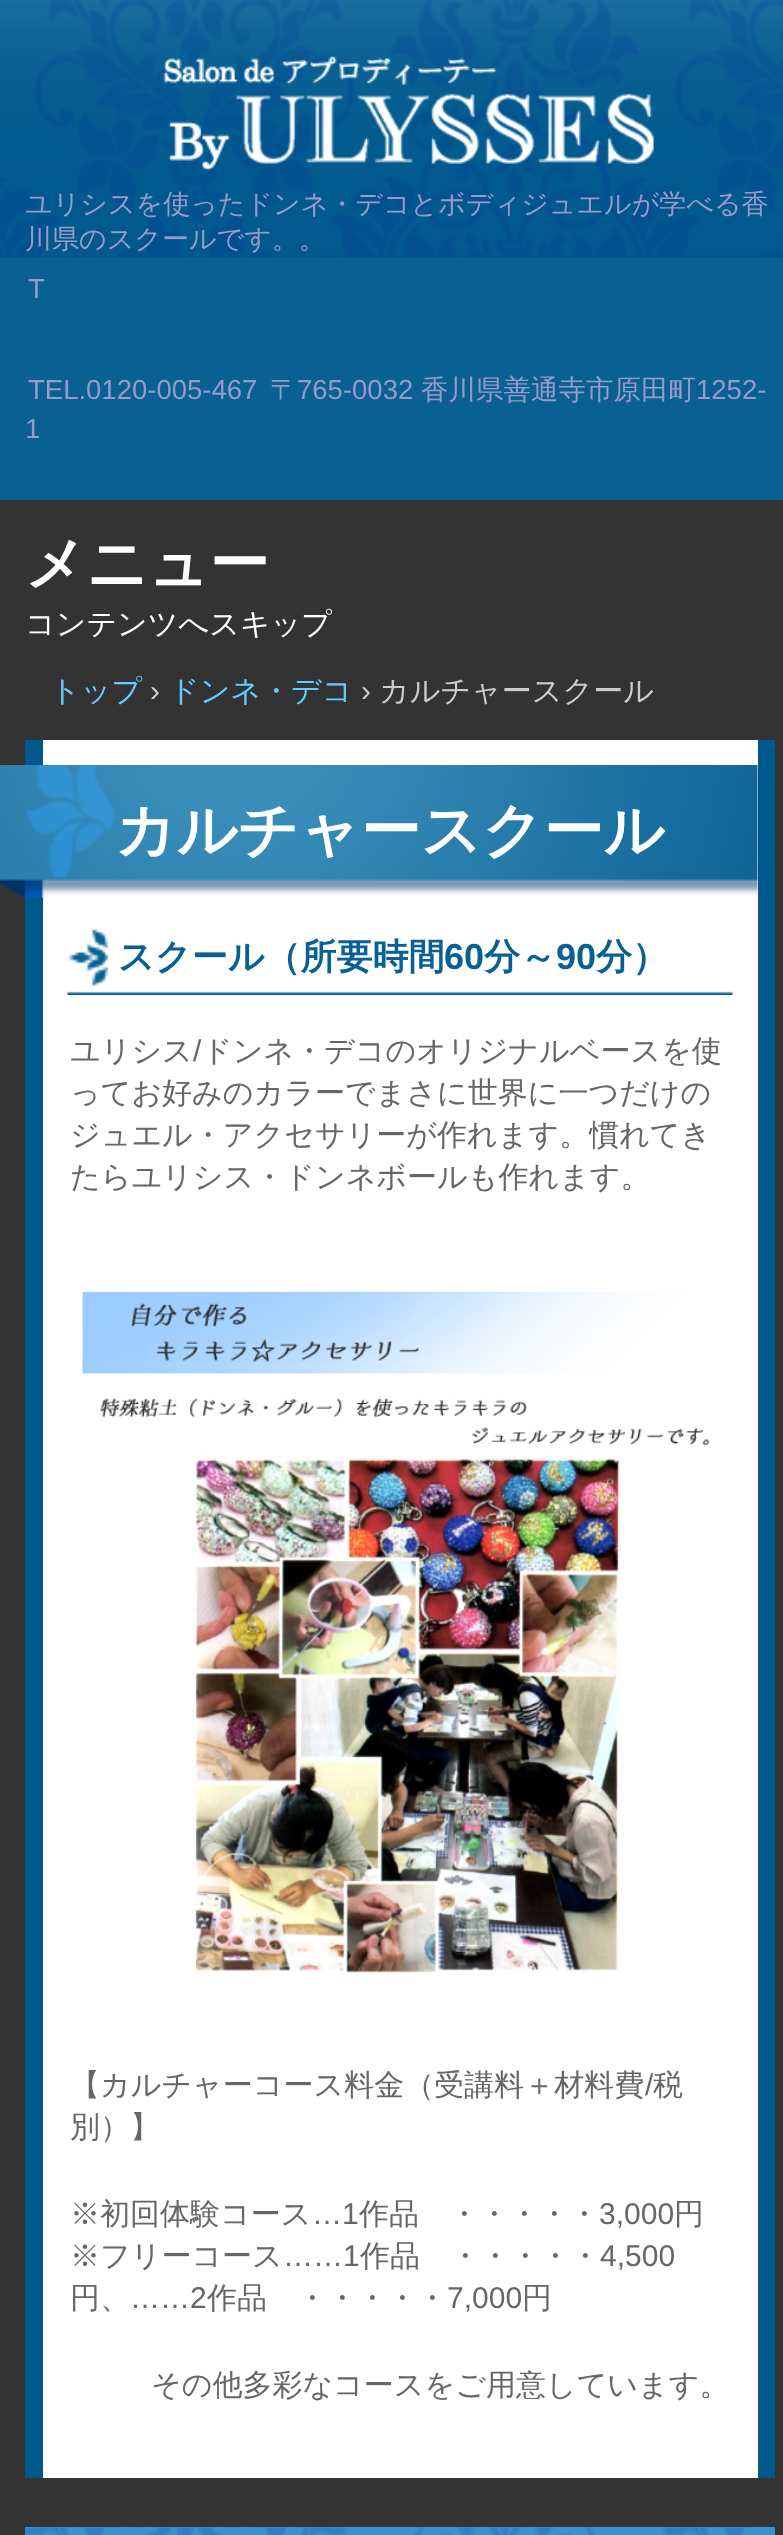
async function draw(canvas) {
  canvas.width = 783;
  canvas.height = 2535;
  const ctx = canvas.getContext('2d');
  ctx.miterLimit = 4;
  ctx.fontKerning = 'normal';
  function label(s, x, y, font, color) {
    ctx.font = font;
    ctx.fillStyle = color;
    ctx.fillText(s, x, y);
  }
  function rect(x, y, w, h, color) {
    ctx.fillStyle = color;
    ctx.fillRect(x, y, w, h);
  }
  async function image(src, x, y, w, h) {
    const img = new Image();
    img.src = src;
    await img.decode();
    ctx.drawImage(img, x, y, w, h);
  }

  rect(0, 0, 783, 2535, '#333');
  await image('assets/img1.png', 0, 0, 783, 258);
  await image('assets/img2.png', 163, 56, 491, 115);
  label('ユリシスを使ったドンネ・デコとボディジュエルが学べる香', 25, 213, '500 27px WenQuanYi Zen Hei', '#99c');
  label('川県のスクールです。。', 25, 248, '500 27px WenQuanYi Zen Hei', '#99c');
  rect(0, 258, 783, 242, '#096193');
  label('T', 28, 298, '27.5px Liberation Sans', '#99c');
  label('TEL.0120-005-467', 28, 399, '27.5px Liberation Sans', '#99c');
  label('〒', 270, 399, '500 27.5px WenQuanYi Zen Hei', '#99c');
  label('765-0032', 297, 399, '27.5px Liberation Sans', '#99c');
  label('香川県善通寺市原田町', 421, 399, '500 27.5px WenQuanYi Zen Hei', '#99c');
  label('1252-', 696, 399, '27.5px Liberation Sans', '#99c');
  label('1', 25, 438, '27.5px Liberation Sans', '#99c');
  label('メニュー', 25, 584, 'bold 60px WenQuanYi Zen Hei', '#fff');
  label('コンテンツへスキップ', 25, 634, '500 30px WenQuanYi Zen Hei', '#fff');
  label('トップ', 50, 701, '500 30px WenQuanYi Zen Hei', '#6cf');
  label('›', 150, 701, '30px Liberation Sans', '#ccc');
  label('ドンネ・デコ', 169, 701, '500 30px WenQuanYi Zen Hei', '#6cf');
  label('›', 361, 701, '30px Liberation Sans', '#ccc');
  label('カルチャースクール', 379, 701, '500 30px WenQuanYi Zen Hei', '#ccc');
  rect(25, 740, 750, 1738, '#00598d');
  rect(43, 740, 715, 1738, '#fff');
  await image('assets/img3.png', 0, 765, 758, 133);
  label('カルチャースクール', 115, 851, 'bold 60px WenQuanYi Zen Hei', '#fff');
  await image('assets/img4.png', 67, 927, 666, 68);
  label('スクール（所要時間', 118, 969, 'bold 36px WenQuanYi Zen Hei', '#096193');
  label('60', 444, 969, 'bold 36px Liberation Sans', '#096193');
  label('分～', 484, 969, 'bold 36px WenQuanYi Zen Hei', '#096193');
  label('90', 556, 969, 'bold 36px Liberation Sans', '#096193');
  label('分）', 596, 969, 'bold 36px WenQuanYi Zen Hei', '#096193');
  label('ユリシス', 70, 1061, '500 30px WenQuanYi Zen Hei', '#666');
  label('/', 193, 1061, '30px Liberation Sans', '#666');
  label('ドンネ・デコのオリジナルベースを使', 202, 1061, '500 30px WenQuanYi Zen Hei', '#666');
  label('ってお好みのカラーでまさに世界に一つだけの', 70, 1103, '500 30px WenQuanYi Zen Hei', '#666');
  label('ジュエル・アクセサリーが作れます。慣れてき', 70, 1145, '500 30px WenQuanYi Zen Hei', '#666');
  label('たらユリシス・ドンネボールも作れます。', 70, 1187, '500 30px WenQuanYi Zen Hei', '#666');
  await image('assets/img5.png', 82, 1291, 627, 682);
  label('【カルチャーコース料金（受講料＋材料費', 70, 2095, '500 30px WenQuanYi Zen Hei', '#666');
  label('/', 645, 2095, '30px Liberation Sans', '#666');
  label('税', 653, 2095, '500 30px WenQuanYi Zen Hei', '#666');
  label('別）】', 70, 2137, '500 30px WenQuanYi Zen Hei', '#666');
  label('※初回体験コース', 70, 2224, '500 30px WenQuanYi Zen Hei', '#666');
  label('…1', 312, 2224, '30px Liberation Sans', '#666');
  label('作品　・・・・・', 359, 2224, '500 30px WenQuanYi Zen Hei', '#666');
  label('3,000', 599, 2224, '30px Liberation Sans', '#666');
  label('円', 674, 2224, '500 30px WenQuanYi Zen Hei', '#666');
  label('※フリーコース', 70, 2266, '500 30px WenQuanYi Zen Hei', '#666');
  label('……1', 283, 2266, '30px Liberation Sans', '#666');
  label('作品　・・・・・', 360, 2266, '500 30px WenQuanYi Zen Hei', '#666');
  label('4,500', 600, 2266, '30px Liberation Sans', '#666');
  label('円、', 70, 2308, '500 30px WenQuanYi Zen Hei', '#666');
  label('……2', 130, 2308, '30px Liberation Sans', '#666');
  label('作品　・・・・・', 207, 2308, '500 30px WenQuanYi Zen Hei', '#666');
  label('7,000', 447, 2308, '30px Liberation Sans', '#666');
  label('円', 522, 2308, '500 30px WenQuanYi Zen Hei', '#666');
  label('その他多彩なコースをご用意しています。', 151, 2395, '500 30px WenQuanYi Zen Hei', '#666');
  rect(25, 2527, 750, 8, '#3e91cf');
  await image('assets/img6.png', 25, 2527, 728, 8);
}

draw(document.querySelector('canvas'));
